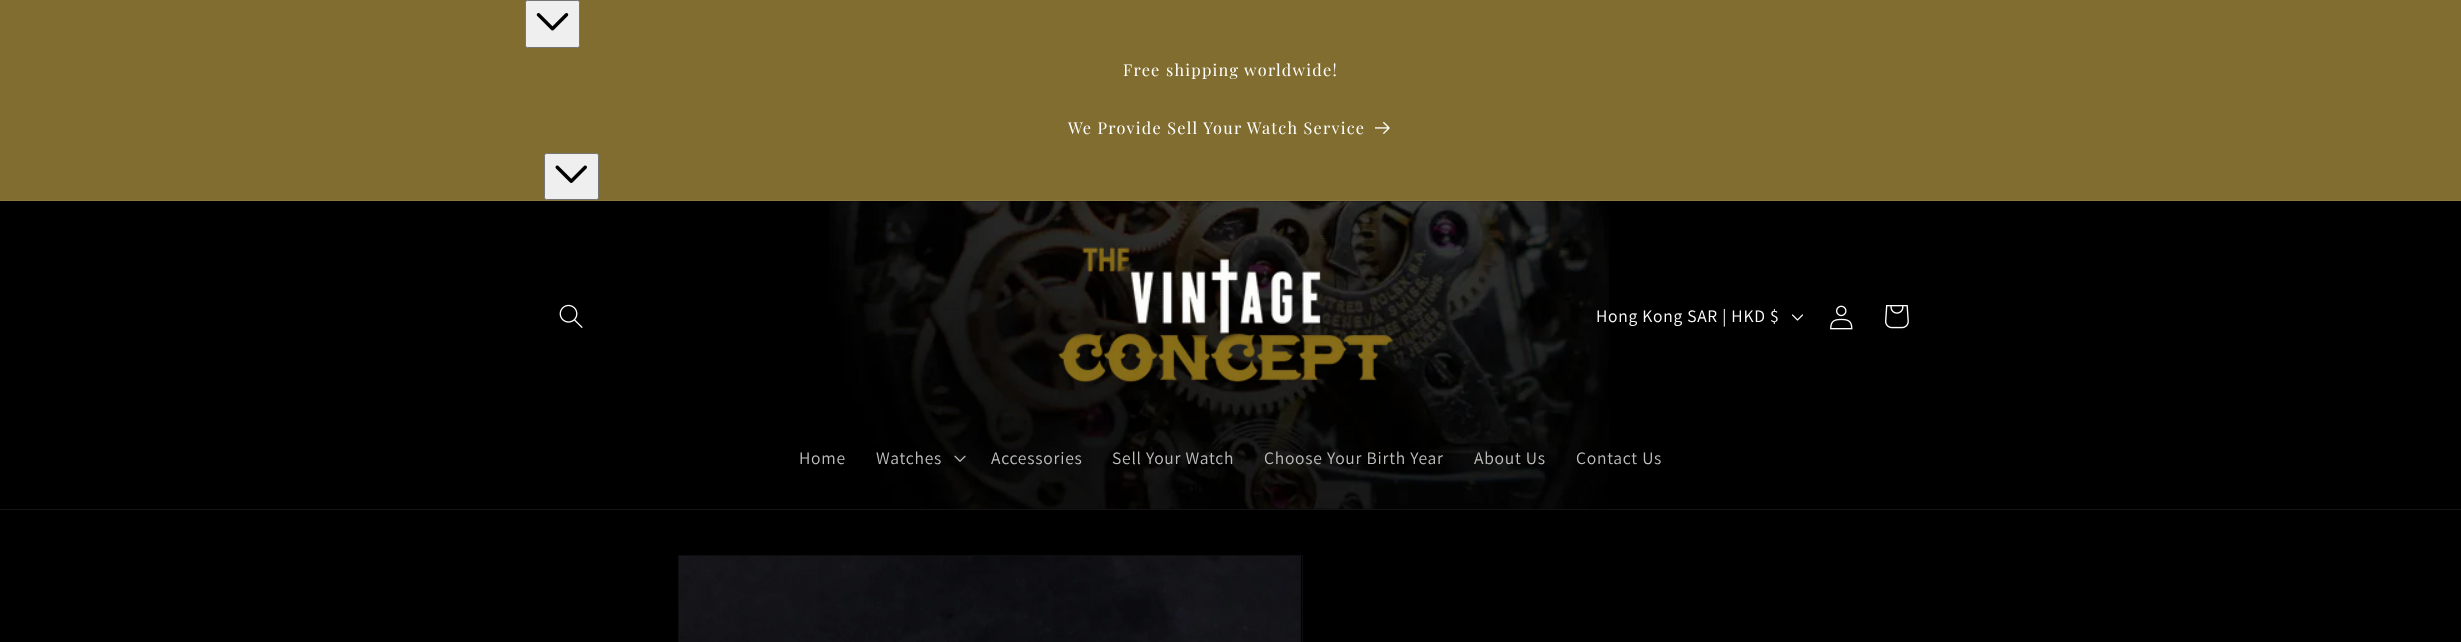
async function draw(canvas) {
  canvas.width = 2461;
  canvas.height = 642;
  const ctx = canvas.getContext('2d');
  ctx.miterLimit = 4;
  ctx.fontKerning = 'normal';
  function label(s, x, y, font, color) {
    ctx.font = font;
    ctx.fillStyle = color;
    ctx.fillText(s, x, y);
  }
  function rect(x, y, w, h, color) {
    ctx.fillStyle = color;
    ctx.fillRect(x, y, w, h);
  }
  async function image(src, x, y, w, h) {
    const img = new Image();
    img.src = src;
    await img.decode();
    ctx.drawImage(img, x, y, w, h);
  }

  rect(0, 0, 2461, 642, '#000');
  rect(0, 0, 2461, 200, '#816d30');
  rect(0, 200, 2461, 1, '#8b7941');
  ctx.fillStyle = '#efefef';
  ctx.beginPath();
  ctx.roundRect(525.5, 0.5, 54, 47, 2);
  ctx.fill();
  ctx.strokeStyle = '#767676';
  ctx.stroke();
  await image('assets/img1.png', 536, 13, 33, 18);
  ctx.letterSpacing = '1.25px';
  label('Free shipping worldwide!', 1123, 76, '16.25px Playfair Display', '#fff');
  label('We Provide Sell Your Watch Service', 1068, 134, '16.25px Playfair Display', '#fff');
  await image('assets/img2.png', 1375, 121, 15, 13);
  ctx.fillStyle = '#efefef';
  ctx.beginPath();
  ctx.roundRect(544.5, 153.5, 54, 46, 2);
  ctx.fill();
  ctx.stroke();
  await image('assets/img3.png', 555, 165, 32, 18);
  rect(0, 509, 2461, 1, '#141414');
  await image('assets/img4.png', 829, 201, 780, 308);
  await image('assets/img5.png', 559, 304, 24, 24);
  await image('assets/img6.png', 1058, 247, 335, 136);
  ctx.letterSpacing = '0.75px';
  label('Hong Kong SAR | HKD $', 1596, 322, '17.5px Assistant', '#fff');
  await image('assets/img7.png', 1792, 314, 11, 7);
  await image('assets/img8.png', 1830, 305, 23, 25);
  await image('assets/img9.png', 1885, 305, 24, 24);
  label('Home', 799, 464, '17.5px Assistant', '#bfbfbf');
  label('Watches', 876, 464, '17.5px Assistant', '#bfbfbf');
  await image('assets/img10.png', 954, 455, 12, 7);
  label('Accessories', 991, 464, '17.5px Assistant', '#bfbfbf');
  label('Sell Your Watch', 1112, 464, '17.5px Assistant', '#bfbfbf');
  label('Choose Your Birth Year', 1264, 464, '17.5px Assistant', '#bfbfbf');
  label('About Us', 1474, 464, '17.5px Assistant', '#bfbfbf');
  label('Contact Us', 1576, 464, '17.5px Assistant', '#bfbfbf');
  ctx.strokeStyle = '#0d0d0d';
  ctx.strokeRect(678.5, 555.5, 624, 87);
  await image('assets/img11.png', 679, 556, 622, 86);
}

draw(document.querySelector('canvas'));
